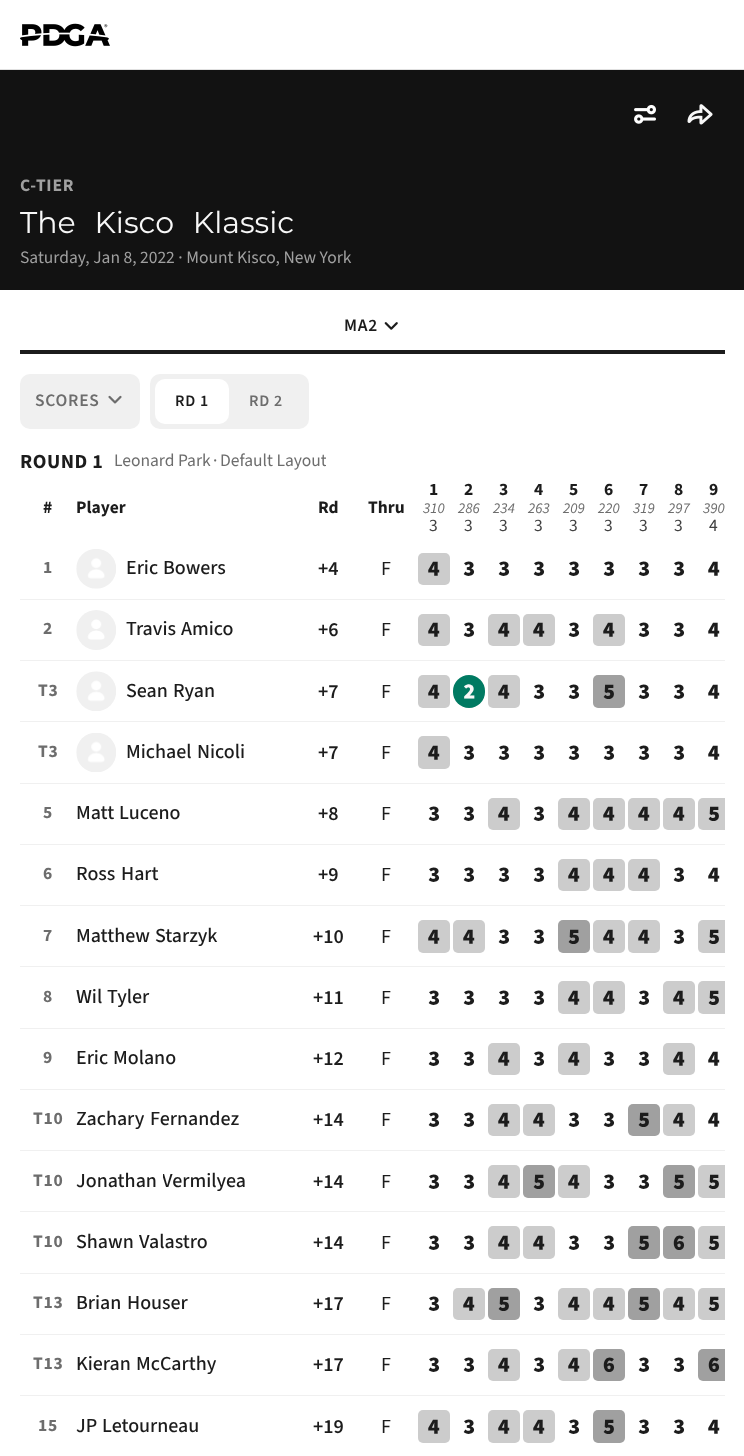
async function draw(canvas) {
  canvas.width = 744;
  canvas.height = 1456;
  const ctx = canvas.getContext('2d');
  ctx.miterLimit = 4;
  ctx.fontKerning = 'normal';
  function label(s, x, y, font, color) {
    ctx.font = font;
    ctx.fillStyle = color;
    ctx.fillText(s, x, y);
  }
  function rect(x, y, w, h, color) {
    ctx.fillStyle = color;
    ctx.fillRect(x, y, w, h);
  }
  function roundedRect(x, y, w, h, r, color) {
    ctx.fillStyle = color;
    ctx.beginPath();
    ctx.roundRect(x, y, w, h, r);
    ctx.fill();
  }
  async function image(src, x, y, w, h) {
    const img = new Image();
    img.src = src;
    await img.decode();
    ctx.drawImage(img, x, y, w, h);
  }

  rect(0, 0, 744, 1456, '#fff');
  rect(0, 69, 744, 1, '#e0e0e0');
  await image('assets/img1.png', 20, 23, 90, 24);
  rect(0, 70, 744, 220, '#121212');
  await image('assets/img2.png', 634, 104, 22, 20);
  await image('assets/img3.png', 687, 104, 26, 21);
  ctx.letterSpacing = '0.75px';
  label('C-TIER', 20, 191, 'bold 17.5px "Source Sans 3"', '#a0a0a0');
  ctx.letterSpacing = '0px';
  ctx.wordSpacing = '11px';
  label('The Kisco Klassic', 20, 233, '30px Montserrat', '#f8f8f8');
  ctx.wordSpacing = '0px';
  label('Saturday, Jan 8, 2022 · Mount Kisco, New York', 20, 263, '17.5px "Source Sans 3"', '#a0a0a0');
  rect(20, 350, 705, 4, '#1c1c1c');
  ctx.letterSpacing = '0.75px';
  label('MA2', 344, 331, '600 17.5px "Source Sans 3"', '#1c1c1c');
  await image('assets/img4.png', 384, 322, 14, 8);
  roundedRect(20, 374, 120, 55, 10, '#f0f0f0');
  label('SCORES', 35, 406, '600 17.5px "Source Sans 3"', '#6d6d6d');
  await image('assets/img5.png', 108, 395, 14, 9);
  roundedRect(150, 374, 159, 55, 10, '#f0f0f0');
  roundedRect(155, 379, 74, 45, 10, '#fff');
  label('RD 1', 175, 406, '600 16px "Source Sans 3"', '#1c1c1c');
  label('RD 2', 249, 406, '600 16px "Source Sans 3"', '#6d6d6d');
  ctx.letterSpacing = '0.5px';
  label('ROUND 1', 20, 468, 'bold 20px "Source Sans 3"', '#1c1c1c');
  ctx.letterSpacing = '0px';
  label('Leonard Park', 114, 466, '17.5px "Source Sans 3"', '#6d6d6d');
  label('·', 213, 466, '17.5px "Source Sans 3"', '#6d6d6d');
  ctx.save();
  ctx.beginPath();
  ctx.rect(114, 450, 212, 24);
  ctx.clip();
  label('Default Layout', 220, 466, '17.5px "Source Sans 3"', '#6d6d6d');
  ctx.restore();
  label('#', 43, 513, 'bold 17.5px "Source Sans 3"', '#1c1c1c');
  label('Player', 76, 513, 'bold 17.5px "Source Sans 3"', '#1c1c1c');
  label('Rd', 318, 513, 'bold 17.5px "Source Sans 3"', '#1c1c1c');
  label('Thru', 368, 513, 'bold 17.5px "Source Sans 3"', '#1c1c1c');
  label('1', 429, 495, 'bold 17.5px "Source Sans 3"', '#1c1c1c');
  label('310', 423, 513, 'italic 15px "Source Sans 3"', '#6d6d6d');
  label('3', 429, 531, '17.5px "Source Sans 3"', '#404040');
  label('2', 464, 495, 'bold 17.5px "Source Sans 3"', '#1c1c1c');
  label('286', 458, 513, 'italic 15px "Source Sans 3"', '#6d6d6d');
  label('3', 464, 531, '17.5px "Source Sans 3"', '#404040');
  label('3', 499, 495, 'bold 17.5px "Source Sans 3"', '#1c1c1c');
  label('234', 493, 513, 'italic 15px "Source Sans 3"', '#6d6d6d');
  label('3', 499, 531, '17.5px "Source Sans 3"', '#404040');
  label('4', 534, 495, 'bold 17.5px "Source Sans 3"', '#1c1c1c');
  label('263', 528, 513, 'italic 15px "Source Sans 3"', '#6d6d6d');
  label('3', 534, 531, '17.5px "Source Sans 3"', '#404040');
  label('5', 569, 495, 'bold 17.5px "Source Sans 3"', '#1c1c1c');
  label('209', 563, 513, 'italic 15px "Source Sans 3"', '#6d6d6d');
  label('3', 569, 531, '17.5px "Source Sans 3"', '#404040');
  label('6', 604, 495, 'bold 17.5px "Source Sans 3"', '#1c1c1c');
  label('220', 598, 513, 'italic 15px "Source Sans 3"', '#6d6d6d');
  label('3', 604, 531, '17.5px "Source Sans 3"', '#404040');
  label('7', 639, 495, 'bold 17.5px "Source Sans 3"', '#1c1c1c');
  label('319', 633, 513, 'italic 15px "Source Sans 3"', '#6d6d6d');
  label('3', 639, 531, '17.5px "Source Sans 3"', '#404040');
  label('8', 674, 495, 'bold 17.5px "Source Sans 3"', '#1c1c1c');
  label('297', 668, 513, 'italic 15px "Source Sans 3"', '#6d6d6d');
  label('3', 674, 531, '17.5px "Source Sans 3"', '#404040');
  label('9', 709, 495, 'bold 17.5px "Source Sans 3"', '#1c1c1c');
  label('390', 703, 513, 'italic 15px "Source Sans 3"', '#6d6d6d');
  label('4', 709, 531, '17.5px "Source Sans 3"', '#404040');
  rect(20, 599, 705, 1, '#f0f0f0');
  ctx.letterSpacing = '0.75px';
  label('1', 43, 573, 'bold 17.5px "Source Sans 3"', '#6d6d6d');
  await image('assets/img6.png', 76, 549, 40, 40);
  ctx.letterSpacing = '0px';
  label('Eric', 126, 574, '500 20px "Source Sans 3"', '#1c1c1c');
  label('Bowers', 163, 574, '500 20px "Source Sans 3"', '#1c1c1c');
  label('+4', 318, 575, '600 20px "Source Sans 3"', '#1c1c1c');
  label('F', 381, 575, '20px "Source Sans 3"', '#1c1c1c');
  roundedRect(418, 553, 32, 32, 5, '#ccc');
  label('4', 428, 576, '900 22px Source Sans Pro', '#1c1c1c');
  label('3', 463, 576, '900 22px Source Sans Pro', '#1c1c1c');
  label('3', 498, 576, '900 22px Source Sans Pro', '#1c1c1c');
  label('3', 533, 576, '900 22px Source Sans Pro', '#1c1c1c');
  label('3', 568, 576, '900 22px Source Sans Pro', '#1c1c1c');
  label('3', 603, 576, '900 22px Source Sans Pro', '#1c1c1c');
  label('3', 638, 576, '900 22px Source Sans Pro', '#1c1c1c');
  label('3', 673, 576, '900 22px Source Sans Pro', '#1c1c1c');
  label('4', 708, 576, '900 22px Source Sans Pro', '#1c1c1c');
  rect(20, 660, 705, 1, '#f0f0f0');
  ctx.letterSpacing = '0.75px';
  label('2', 43, 634, 'bold 17.5px "Source Sans 3"', '#6d6d6d');
  await image('assets/img7.png', 76, 610, 40, 40);
  ctx.letterSpacing = '0px';
  label('Travis', 126, 635, '500 20px "Source Sans 3"', '#1c1c1c');
  label('Amico', 181, 635, '500 20px "Source Sans 3"', '#1c1c1c');
  label('+6', 318, 636, '600 20px "Source Sans 3"', '#1c1c1c');
  label('F', 381, 636, '20px "Source Sans 3"', '#1c1c1c');
  roundedRect(418, 614, 32, 32, 5, '#ccc');
  label('4', 428, 637, '900 22px Source Sans Pro', '#1c1c1c');
  label('3', 463, 637, '900 22px Source Sans Pro', '#1c1c1c');
  roundedRect(488, 614, 32, 32, 5, '#ccc');
  label('4', 498, 637, '900 22px Source Sans Pro', '#1c1c1c');
  roundedRect(523, 614, 32, 32, 5, '#ccc');
  label('4', 533, 637, '900 22px Source Sans Pro', '#1c1c1c');
  label('3', 568, 637, '900 22px Source Sans Pro', '#1c1c1c');
  roundedRect(593, 614, 32, 32, 5, '#ccc');
  label('4', 603, 637, '900 22px Source Sans Pro', '#1c1c1c');
  label('3', 638, 637, '900 22px Source Sans Pro', '#1c1c1c');
  label('3', 673, 637, '900 22px Source Sans Pro', '#1c1c1c');
  label('4', 708, 637, '900 22px Source Sans Pro', '#1c1c1c');
  rect(20, 721, 705, 1, '#f0f0f0');
  ctx.letterSpacing = '0.75px';
  label('T3', 38, 696, 'bold 17.5px "Source Sans 3"', '#6d6d6d');
  await image('assets/img8.png', 76, 671, 40, 40);
  ctx.letterSpacing = '0px';
  label('Sean', 126, 697, '500 20px "Source Sans 3"', '#1c1c1c');
  label('Ryan', 173, 697, '500 20px "Source Sans 3"', '#1c1c1c');
  label('+7', 318, 698, '600 20px "Source Sans 3"', '#1c1c1c');
  label('F', 381, 698, '20px "Source Sans 3"', '#1c1c1c');
  roundedRect(418, 675, 32, 33, 5, '#ccc');
  label('4', 428, 699, '900 22px Source Sans Pro', '#1c1c1c');
  roundedRect(453, 675, 32, 33, 16, '#007a62');
  label('2', 463, 699, '900 22px Source Sans Pro', '#f8f8f8');
  roundedRect(488, 675, 32, 33, 5, '#ccc');
  label('4', 498, 699, '900 22px Source Sans Pro', '#1c1c1c');
  label('3', 533, 699, '900 22px Source Sans Pro', '#1c1c1c');
  label('3', 568, 699, '900 22px Source Sans Pro', '#1c1c1c');
  roundedRect(593, 675, 32, 33, 5, '#a0a0a0');
  label('5', 603, 699, '900 22px Source Sans Pro', '#1c1c1c');
  label('3', 638, 699, '900 22px Source Sans Pro', '#1c1c1c');
  label('3', 673, 699, '900 22px Source Sans Pro', '#1c1c1c');
  label('4', 708, 699, '900 22px Source Sans Pro', '#1c1c1c');
  rect(20, 783, 705, 1, '#f0f0f0');
  ctx.letterSpacing = '0.75px';
  label('T3', 38, 757, 'bold 17.5px "Source Sans 3"', '#6d6d6d');
  await image('assets/img9.png', 76, 733, 40, 39);
  ctx.letterSpacing = '0px';
  label('Michael', 126, 758, '500 20px "Source Sans 3"', '#1c1c1c');
  label('Nicoli', 197, 758, '500 20px "Source Sans 3"', '#1c1c1c');
  label('+7', 318, 759, '600 20px "Source Sans 3"', '#1c1c1c');
  label('F', 381, 759, '20px "Source Sans 3"', '#1c1c1c');
  roundedRect(418, 736, 32, 33, 5, '#ccc');
  label('4', 428, 760, '900 22px Source Sans Pro', '#1c1c1c');
  label('3', 463, 760, '900 22px Source Sans Pro', '#1c1c1c');
  label('3', 498, 760, '900 22px Source Sans Pro', '#1c1c1c');
  label('3', 533, 760, '900 22px Source Sans Pro', '#1c1c1c');
  label('3', 568, 760, '900 22px Source Sans Pro', '#1c1c1c');
  label('3', 603, 760, '900 22px Source Sans Pro', '#1c1c1c');
  label('3', 638, 760, '900 22px Source Sans Pro', '#1c1c1c');
  label('3', 673, 760, '900 22px Source Sans Pro', '#1c1c1c');
  label('4', 708, 760, '900 22px Source Sans Pro', '#1c1c1c');
  rect(20, 844, 705, 1, '#f0f0f0');
  ctx.letterSpacing = '0.75px';
  label('5', 43, 818, 'bold 17.5px "Source Sans 3"', '#6d6d6d');
  ctx.letterSpacing = '0px';
  label('Matt', 76, 819, '500 20px "Source Sans 3"', '#1c1c1c');
  label('Luceno', 119, 819, '500 20px "Source Sans 3"', '#1c1c1c');
  label('+8', 318, 820, '600 20px "Source Sans 3"', '#1c1c1c');
  label('F', 381, 820, '20px "Source Sans 3"', '#1c1c1c');
  label('3', 428, 821, '900 22px Source Sans Pro', '#1c1c1c');
  label('3', 463, 821, '900 22px Source Sans Pro', '#1c1c1c');
  roundedRect(488, 798, 32, 32, 5, '#ccc');
  label('4', 498, 821, '900 22px Source Sans Pro', '#1c1c1c');
  label('3', 533, 821, '900 22px Source Sans Pro', '#1c1c1c');
  roundedRect(558, 798, 32, 32, 5, '#ccc');
  label('4', 568, 821, '900 22px Source Sans Pro', '#1c1c1c');
  roundedRect(593, 798, 32, 32, 5, '#ccc');
  label('4', 603, 821, '900 22px Source Sans Pro', '#1c1c1c');
  roundedRect(628, 798, 32, 32, 5, '#ccc');
  label('4', 638, 821, '900 22px Source Sans Pro', '#1c1c1c');
  roundedRect(663, 798, 32, 32, 5, '#ccc');
  label('4', 673, 821, '900 22px Source Sans Pro', '#1c1c1c');
  ctx.fillStyle = '#ccc';
  ctx.beginPath();
  ctx.roundRect(698, 798, 27, 32, [5, 0, 0, 5]);
  ctx.fill();
  label('5', 708, 821, '900 22px Source Sans Pro', '#1c1c1c');
  rect(20, 905, 705, 1, '#f0f0f0');
  ctx.letterSpacing = '0.75px';
  label('6', 43, 879, 'bold 17.5px "Source Sans 3"', '#6d6d6d');
  ctx.letterSpacing = '0px';
  label('Ross', 76, 880, '500 20px "Source Sans 3"', '#1c1c1c');
  label('Hart', 121, 880, '500 20px "Source Sans 3"', '#1c1c1c');
  label('+9', 318, 881, '600 20px "Source Sans 3"', '#1c1c1c');
  label('F', 381, 881, '20px "Source Sans 3"', '#1c1c1c');
  label('3', 428, 882, '900 22px Source Sans Pro', '#1c1c1c');
  label('3', 463, 882, '900 22px Source Sans Pro', '#1c1c1c');
  label('3', 498, 882, '900 22px Source Sans Pro', '#1c1c1c');
  label('3', 533, 882, '900 22px Source Sans Pro', '#1c1c1c');
  roundedRect(558, 859, 32, 32, 5, '#ccc');
  label('4', 568, 882, '900 22px Source Sans Pro', '#1c1c1c');
  roundedRect(593, 859, 32, 32, 5, '#ccc');
  label('4', 603, 882, '900 22px Source Sans Pro', '#1c1c1c');
  roundedRect(628, 859, 32, 32, 5, '#ccc');
  label('4', 638, 882, '900 22px Source Sans Pro', '#1c1c1c');
  label('3', 673, 882, '900 22px Source Sans Pro', '#1c1c1c');
  label('4', 708, 882, '900 22px Source Sans Pro', '#1c1c1c');
  rect(20, 966, 705, 1, '#f0f0f0');
  ctx.letterSpacing = '0.75px';
  label('7', 43, 941, 'bold 17.5px "Source Sans 3"', '#6d6d6d');
  ctx.letterSpacing = '0px';
  label('Matthew', 76, 942, '500 20px "Source Sans 3"', '#1c1c1c');
  label('Starzyk', 155, 942, '500 20px "Source Sans 3"', '#1c1c1c');
  label('+10', 313, 943, '600 20px "Source Sans 3"', '#1c1c1c');
  label('F', 381, 943, '20px "Source Sans 3"', '#1c1c1c');
  roundedRect(418, 920, 32, 33, 5, '#ccc');
  label('4', 428, 944, '900 22px Source Sans Pro', '#1c1c1c');
  roundedRect(453, 920, 32, 33, 5, '#ccc');
  label('4', 463, 944, '900 22px Source Sans Pro', '#1c1c1c');
  label('3', 498, 944, '900 22px Source Sans Pro', '#1c1c1c');
  label('3', 533, 944, '900 22px Source Sans Pro', '#1c1c1c');
  roundedRect(558, 920, 32, 33, 5, '#a0a0a0');
  label('5', 568, 944, '900 22px Source Sans Pro', '#1c1c1c');
  roundedRect(593, 920, 32, 33, 5, '#ccc');
  label('4', 603, 944, '900 22px Source Sans Pro', '#1c1c1c');
  roundedRect(628, 920, 32, 33, 5, '#ccc');
  label('4', 638, 944, '900 22px Source Sans Pro', '#1c1c1c');
  label('3', 673, 944, '900 22px Source Sans Pro', '#1c1c1c');
  ctx.fillStyle = '#ccc';
  ctx.beginPath();
  ctx.roundRect(698, 920, 27, 33, [5, 0, 0, 5]);
  ctx.fill();
  label('5', 708, 944, '900 22px Source Sans Pro', '#1c1c1c');
  rect(20, 1028, 705, 1, '#f0f0f0');
  ctx.letterSpacing = '0.75px';
  label('8', 43, 1002, 'bold 17.5px "Source Sans 3"', '#6d6d6d');
  ctx.letterSpacing = '0px';
  label('Wil', 76, 1003, '500 20px "Source Sans 3"', '#1c1c1c');
  label('Tyler', 107, 1003, '500 20px "Source Sans 3"', '#1c1c1c');
  label('+11', 313, 1004, '600 20px "Source Sans 3"', '#1c1c1c');
  label('F', 381, 1004, '20px "Source Sans 3"', '#1c1c1c');
  label('3', 428, 1005, '900 22px Source Sans Pro', '#1c1c1c');
  label('3', 463, 1005, '900 22px Source Sans Pro', '#1c1c1c');
  label('3', 498, 1005, '900 22px Source Sans Pro', '#1c1c1c');
  label('3', 533, 1005, '900 22px Source Sans Pro', '#1c1c1c');
  roundedRect(558, 981, 32, 33, 5, '#ccc');
  label('4', 568, 1005, '900 22px Source Sans Pro', '#1c1c1c');
  roundedRect(593, 981, 32, 33, 5, '#ccc');
  label('4', 603, 1005, '900 22px Source Sans Pro', '#1c1c1c');
  label('3', 638, 1005, '900 22px Source Sans Pro', '#1c1c1c');
  roundedRect(663, 981, 32, 33, 5, '#ccc');
  label('4', 673, 1005, '900 22px Source Sans Pro', '#1c1c1c');
  ctx.fillStyle = '#ccc';
  ctx.beginPath();
  ctx.roundRect(698, 981, 27, 33, [5, 0, 0, 5]);
  ctx.fill();
  label('5', 708, 1005, '900 22px Source Sans Pro', '#1c1c1c');
  rect(20, 1089, 705, 1, '#f0f0f0');
  ctx.letterSpacing = '0.75px';
  label('9', 43, 1063, 'bold 17.5px "Source Sans 3"', '#6d6d6d');
  ctx.letterSpacing = '0px';
  label('Eric', 76, 1064, '500 20px "Source Sans 3"', '#1c1c1c');
  label('Molano', 113, 1064, '500 20px "Source Sans 3"', '#1c1c1c');
  label('+12', 313, 1065, '600 20px "Source Sans 3"', '#1c1c1c');
  label('F', 381, 1065, '20px "Source Sans 3"', '#1c1c1c');
  label('3', 428, 1066, '900 22px Source Sans Pro', '#1c1c1c');
  label('3', 463, 1066, '900 22px Source Sans Pro', '#1c1c1c');
  roundedRect(488, 1043, 32, 32, 5, '#ccc');
  label('4', 498, 1066, '900 22px Source Sans Pro', '#1c1c1c');
  label('3', 533, 1066, '900 22px Source Sans Pro', '#1c1c1c');
  roundedRect(558, 1043, 32, 32, 5, '#ccc');
  label('4', 568, 1066, '900 22px Source Sans Pro', '#1c1c1c');
  label('3', 603, 1066, '900 22px Source Sans Pro', '#1c1c1c');
  label('3', 638, 1066, '900 22px Source Sans Pro', '#1c1c1c');
  roundedRect(663, 1043, 32, 32, 5, '#ccc');
  label('4', 673, 1066, '900 22px Source Sans Pro', '#1c1c1c');
  label('4', 708, 1066, '900 22px Source Sans Pro', '#1c1c1c');
  rect(20, 1150, 705, 1, '#f0f0f0');
  ctx.letterSpacing = '0.75px';
  label('T10', 33, 1124, 'bold 17.5px "Source Sans 3"', '#6d6d6d');
  ctx.letterSpacing = '0px';
  label('Zachary', 76, 1125, '500 20px "Source Sans 3"', '#1c1c1c');
  label('Fernandez', 150, 1125, '500 20px "Source Sans 3"', '#1c1c1c');
  label('+14', 313, 1126, '600 20px "Source Sans 3"', '#1c1c1c');
  label('F', 381, 1126, '20px "Source Sans 3"', '#1c1c1c');
  label('3', 428, 1127, '900 22px Source Sans Pro', '#1c1c1c');
  label('3', 463, 1127, '900 22px Source Sans Pro', '#1c1c1c');
  roundedRect(488, 1104, 32, 32, 5, '#ccc');
  label('4', 498, 1127, '900 22px Source Sans Pro', '#1c1c1c');
  roundedRect(523, 1104, 32, 32, 5, '#ccc');
  label('4', 533, 1127, '900 22px Source Sans Pro', '#1c1c1c');
  label('3', 568, 1127, '900 22px Source Sans Pro', '#1c1c1c');
  label('3', 603, 1127, '900 22px Source Sans Pro', '#1c1c1c');
  roundedRect(628, 1104, 32, 32, 5, '#a0a0a0');
  label('5', 638, 1127, '900 22px Source Sans Pro', '#1c1c1c');
  roundedRect(663, 1104, 32, 32, 5, '#ccc');
  label('4', 673, 1127, '900 22px Source Sans Pro', '#1c1c1c');
  label('4', 708, 1127, '900 22px Source Sans Pro', '#1c1c1c');
  rect(20, 1211, 705, 1, '#f0f0f0');
  ctx.letterSpacing = '0.75px';
  label('T10', 33, 1186, 'bold 17.5px "Source Sans 3"', '#6d6d6d');
  ctx.letterSpacing = '0px';
  label('Jonathan', 76, 1187, '500 20px "Source Sans 3"', '#1c1c1c');
  ctx.save();
  ctx.beginPath();
  ctx.rect(163, 1170, 83, 23);
  ctx.clip();
  label('Vermilyea', 162, 1187, '500 20px "Source Sans 3"', '#1c1c1c');
  ctx.restore();
  label('+14', 313, 1188, '600 20px "Source Sans 3"', '#1c1c1c');
  label('F', 381, 1188, '20px "Source Sans 3"', '#1c1c1c');
  label('3', 428, 1189, '900 22px Source Sans Pro', '#1c1c1c');
  label('3', 463, 1189, '900 22px Source Sans Pro', '#1c1c1c');
  roundedRect(488, 1165, 32, 33, 5, '#ccc');
  label('4', 498, 1189, '900 22px Source Sans Pro', '#1c1c1c');
  roundedRect(523, 1165, 32, 33, 5, '#a0a0a0');
  label('5', 533, 1189, '900 22px Source Sans Pro', '#1c1c1c');
  roundedRect(558, 1165, 32, 33, 5, '#ccc');
  label('4', 568, 1189, '900 22px Source Sans Pro', '#1c1c1c');
  label('3', 603, 1189, '900 22px Source Sans Pro', '#1c1c1c');
  label('3', 638, 1189, '900 22px Source Sans Pro', '#1c1c1c');
  roundedRect(663, 1165, 32, 33, 5, '#a0a0a0');
  label('5', 673, 1189, '900 22px Source Sans Pro', '#1c1c1c');
  ctx.fillStyle = '#ccc';
  ctx.beginPath();
  ctx.roundRect(698, 1165, 27, 33, [5, 0, 0, 5]);
  ctx.fill();
  label('5', 708, 1189, '900 22px Source Sans Pro', '#1c1c1c');
  rect(20, 1273, 705, 1, '#f0f0f0');
  ctx.letterSpacing = '0.75px';
  label('T10', 33, 1247, 'bold 17.5px "Source Sans 3"', '#6d6d6d');
  ctx.letterSpacing = '0px';
  label('Shawn', 76, 1248, '500 20px "Source Sans 3"', '#1c1c1c');
  label('Valastro', 139, 1248, '500 20px "Source Sans 3"', '#1c1c1c');
  label('+14', 313, 1249, '600 20px "Source Sans 3"', '#1c1c1c');
  label('F', 381, 1249, '20px "Source Sans 3"', '#1c1c1c');
  label('3', 428, 1250, '900 22px Source Sans Pro', '#1c1c1c');
  label('3', 463, 1250, '900 22px Source Sans Pro', '#1c1c1c');
  roundedRect(488, 1226, 32, 33, 5, '#ccc');
  label('4', 498, 1250, '900 22px Source Sans Pro', '#1c1c1c');
  roundedRect(523, 1226, 32, 33, 5, '#ccc');
  label('4', 533, 1250, '900 22px Source Sans Pro', '#1c1c1c');
  label('3', 568, 1250, '900 22px Source Sans Pro', '#1c1c1c');
  label('3', 603, 1250, '900 22px Source Sans Pro', '#1c1c1c');
  roundedRect(628, 1226, 32, 33, 5, '#a0a0a0');
  label('5', 638, 1250, '900 22px Source Sans Pro', '#1c1c1c');
  roundedRect(663, 1226, 32, 33, 5, '#a0a0a0');
  label('6', 673, 1250, '900 22px Source Sans Pro', '#1c1c1c');
  ctx.fillStyle = '#ccc';
  ctx.beginPath();
  ctx.roundRect(698, 1226, 27, 33, [5, 0, 0, 5]);
  ctx.fill();
  label('5', 708, 1250, '900 22px Source Sans Pro', '#1c1c1c');
  rect(20, 1334, 705, 1, '#f0f0f0');
  ctx.letterSpacing = '0.75px';
  label('T13', 33, 1308, 'bold 17.5px "Source Sans 3"', '#6d6d6d');
  ctx.letterSpacing = '0px';
  label('Brian', 76, 1309, '500 20px "Source Sans 3"', '#1c1c1c');
  label('Houser', 127, 1309, '500 20px "Source Sans 3"', '#1c1c1c');
  label('+17', 313, 1310, '600 20px "Source Sans 3"', '#1c1c1c');
  label('F', 381, 1310, '20px "Source Sans 3"', '#1c1c1c');
  label('3', 428, 1311, '900 22px Source Sans Pro', '#1c1c1c');
  roundedRect(453, 1288, 32, 32, 5, '#ccc');
  label('4', 463, 1311, '900 22px Source Sans Pro', '#1c1c1c');
  roundedRect(488, 1288, 32, 32, 5, '#a0a0a0');
  label('5', 498, 1311, '900 22px Source Sans Pro', '#1c1c1c');
  label('3', 533, 1311, '900 22px Source Sans Pro', '#1c1c1c');
  roundedRect(558, 1288, 32, 32, 5, '#ccc');
  label('4', 568, 1311, '900 22px Source Sans Pro', '#1c1c1c');
  roundedRect(593, 1288, 32, 32, 5, '#ccc');
  label('4', 603, 1311, '900 22px Source Sans Pro', '#1c1c1c');
  roundedRect(628, 1288, 32, 32, 5, '#a0a0a0');
  label('5', 638, 1311, '900 22px Source Sans Pro', '#1c1c1c');
  roundedRect(663, 1288, 32, 32, 5, '#ccc');
  label('4', 673, 1311, '900 22px Source Sans Pro', '#1c1c1c');
  ctx.fillStyle = '#ccc';
  ctx.beginPath();
  ctx.roundRect(698, 1288, 27, 32, [5, 0, 0, 5]);
  ctx.fill();
  label('5', 708, 1311, '900 22px Source Sans Pro', '#1c1c1c');
  rect(20, 1395, 705, 1, '#f0f0f0');
  ctx.letterSpacing = '0.75px';
  label('T13', 33, 1369, 'bold 17.5px "Source Sans 3"', '#6d6d6d');
  ctx.letterSpacing = '0px';
  label('Kieran', 76, 1370, '500 20px "Source Sans 3"', '#1c1c1c');
  label('McCarthy', 136, 1370, '500 20px "Source Sans 3"', '#1c1c1c');
  label('+17', 313, 1371, '600 20px "Source Sans 3"', '#1c1c1c');
  label('F', 381, 1371, '20px "Source Sans 3"', '#1c1c1c');
  label('3', 428, 1372, '900 22px Source Sans Pro', '#1c1c1c');
  label('3', 463, 1372, '900 22px Source Sans Pro', '#1c1c1c');
  roundedRect(488, 1349, 32, 32, 5, '#ccc');
  label('4', 498, 1372, '900 22px Source Sans Pro', '#1c1c1c');
  label('3', 533, 1372, '900 22px Source Sans Pro', '#1c1c1c');
  roundedRect(558, 1349, 32, 32, 5, '#ccc');
  label('4', 568, 1372, '900 22px Source Sans Pro', '#1c1c1c');
  roundedRect(593, 1349, 32, 32, 5, '#a0a0a0');
  label('6', 603, 1372, '900 22px Source Sans Pro', '#1c1c1c');
  label('3', 638, 1372, '900 22px Source Sans Pro', '#1c1c1c');
  label('3', 673, 1372, '900 22px Source Sans Pro', '#1c1c1c');
  ctx.fillStyle = '#a0a0a0';
  ctx.beginPath();
  ctx.roundRect(698, 1349, 27, 32, [5, 0, 0, 5]);
  ctx.fill();
  label('6', 708, 1372, '900 22px Source Sans Pro', '#1c1c1c');
  ctx.letterSpacing = '0.75px';
  label('15', 38, 1431, 'bold 17.5px "Source Sans 3"', '#6d6d6d');
  ctx.letterSpacing = '0px';
  label('JP', 76, 1432, '500 20px "Source Sans 3"', '#1c1c1c');
  label('Letourneau', 102, 1432, '500 20px "Source Sans 3"', '#1c1c1c');
  label('+19', 313, 1433, '600 20px "Source Sans 3"', '#1c1c1c');
  label('F', 381, 1433, '20px "Source Sans 3"', '#1c1c1c');
  roundedRect(418, 1410, 32, 33, 5, '#ccc');
  label('4', 428, 1434, '900 22px Source Sans Pro', '#1c1c1c');
  label('3', 463, 1434, '900 22px Source Sans Pro', '#1c1c1c');
  roundedRect(488, 1410, 32, 33, 5, '#ccc');
  label('4', 498, 1434, '900 22px Source Sans Pro', '#1c1c1c');
  roundedRect(523, 1410, 32, 33, 5, '#ccc');
  label('4', 533, 1434, '900 22px Source Sans Pro', '#1c1c1c');
  label('3', 568, 1434, '900 22px Source Sans Pro', '#1c1c1c');
  roundedRect(593, 1410, 32, 33, 5, '#a0a0a0');
  label('5', 603, 1434, '900 22px Source Sans Pro', '#1c1c1c');
  label('3', 638, 1434, '900 22px Source Sans Pro', '#1c1c1c');
  label('3', 673, 1434, '900 22px Source Sans Pro', '#1c1c1c');
  label('4', 708, 1434, '900 22px Source Sans Pro', '#1c1c1c');
}

draw(document.querySelector('canvas'));
